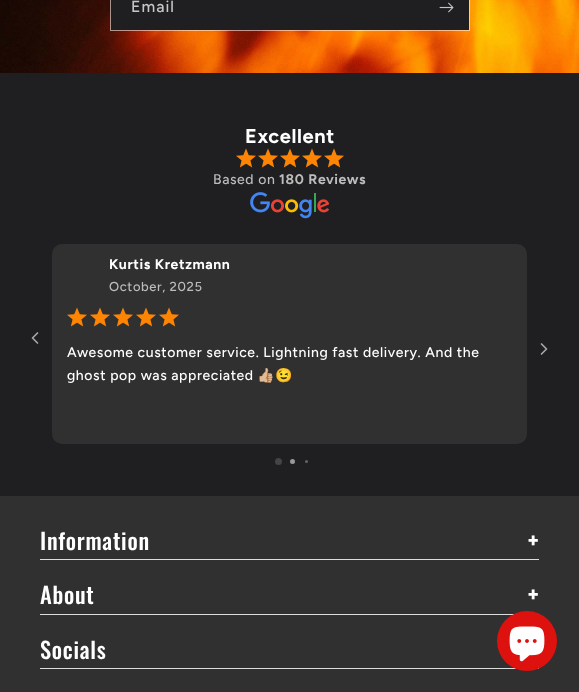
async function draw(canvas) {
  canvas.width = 579;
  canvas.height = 692;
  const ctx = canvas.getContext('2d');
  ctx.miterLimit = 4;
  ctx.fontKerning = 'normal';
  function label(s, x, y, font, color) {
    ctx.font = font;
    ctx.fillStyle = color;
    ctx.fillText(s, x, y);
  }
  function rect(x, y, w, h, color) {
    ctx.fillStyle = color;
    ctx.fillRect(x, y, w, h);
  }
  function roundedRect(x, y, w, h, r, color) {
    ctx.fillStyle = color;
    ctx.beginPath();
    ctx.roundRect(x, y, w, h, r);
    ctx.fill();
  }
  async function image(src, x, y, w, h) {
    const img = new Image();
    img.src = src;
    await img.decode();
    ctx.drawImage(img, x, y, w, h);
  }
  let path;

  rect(0, 0, 579, 692, '#1f1f21');
  await image('assets/img1.png', 0, 0, 579, 73);
  rect(111, 0, 358, 30, '#1f1f21');
  ctx.strokeStyle = '#ffffff8c';
  ctx.strokeRect(110.5, -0.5, 359, 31);
  ctx.letterSpacing = '1px';
  label('Email', 131, 12, '500 16px Figtree', '#c7c7c8');
  await image('assets/img2.png', 439, 2, 15, 11);
  ctx.letterSpacing = '0.6px';
  label('Excellent', 245, 143, 'bold 20px Figtree', '#fff');
  await image('assets/img3.png', 236, 148, 20, 20);
  await image('assets/img3.png', 258, 148, 20, 20);
  await image('assets/img3.png', 280, 148, 20, 20);
  await image('assets/img3.png', 302, 148, 20, 20);
  await image('assets/img3.png', 324, 148, 20, 20);
  label('Based on', 213, 184, '500 14px Figtree', '#bcbcbc');
  label('180 Reviews', 279, 184, 'bold 14px Figtree', '#bcbcbc');
  await image('assets/img4.png', 250, 192, 79, 27);
  path = new Path2D('M37.5 343L32.5 338L37.5 333');
  ctx.strokeStyle = '#a5a5a6';
  ctx.lineWidth = 1.7;
  ctx.lineCap = 'round';
  ctx.lineJoin = 'round';
  ctx.stroke(path);
  roundedRect(52, 244, 475, 200, 10, '#303030');
  label('Kurtis Kretzmann', 109, 269, 'bold 14px Figtree', '#fff');
  label('October, 2025', 109, 291, '500 13px Figtree', '#bcbcbc');
  await image('assets/img5.png', 67, 307, 20, 20);
  await image('assets/img5.png', 90, 307, 20, 20);
  await image('assets/img5.png', 113, 307, 20, 20);
  await image('assets/img5.png', 136, 307, 20, 20);
  await image('assets/img5.png', 159, 307, 20, 20);
  label('Awesome customer service. Lightning fast delivery. And the', 67, 357, '500 14px Figtree', '#fff');
  label('ghost pop was appreciated', 67, 380, '500 14px Figtree', '#fff');
  label('👍🏼😉', 257, 380, '14px Noto Color Emoji', '#fff');
  path = new Path2D('M541.5 354L546.5 349L541.5 344');
  ctx.stroke(path);
  ctx.fillStyle = '#444';
  ctx.beginPath();
  ctx.arc(278.5, 461.5, 3.5, 0, 2 * Math.PI);
  ctx.fill();
  ctx.fillStyle = '#989899';
  ctx.beginPath();
  ctx.arc(292.5, 461.5, 2.5, 0, 2 * Math.PI);
  ctx.fill();
  ctx.fillStyle = '#646465';
  ctx.beginPath();
  ctx.arc(306.5, 461.5, 1.5, 0, 2 * Math.PI);
  ctx.fill();
  rect(0, 496, 579, 196, '#303030');
  rect(40, 559, 499, 1, '#ddd');
  ctx.letterSpacing = '0.75px';
  label('Information', 40, 550, '500 22.5px Oswald', '#fff');
  label('+', 528, 550, 'bold 22.5px Oswald', '#fff');
  rect(40, 614, 474, 1, '#ddd');
  label('About', 40, 604, '500 22.5px Oswald', '#fff');
  label('+', 528, 604, 'bold 22.5px Oswald', '#fff');
  rect(40, 668, 499, 1, '#ddd');
  label('Socials', 40, 659, '500 22.5px Oswald', '#fff');
  ctx.fillStyle = '#dd110e';
  ctx.beginPath();
  ctx.arc(527, 641, 30, 0, 2 * Math.PI);
  ctx.fill();
  await image('assets/img6.png', 509, 626, 36, 36);
}

draw(document.querySelector('canvas'));
